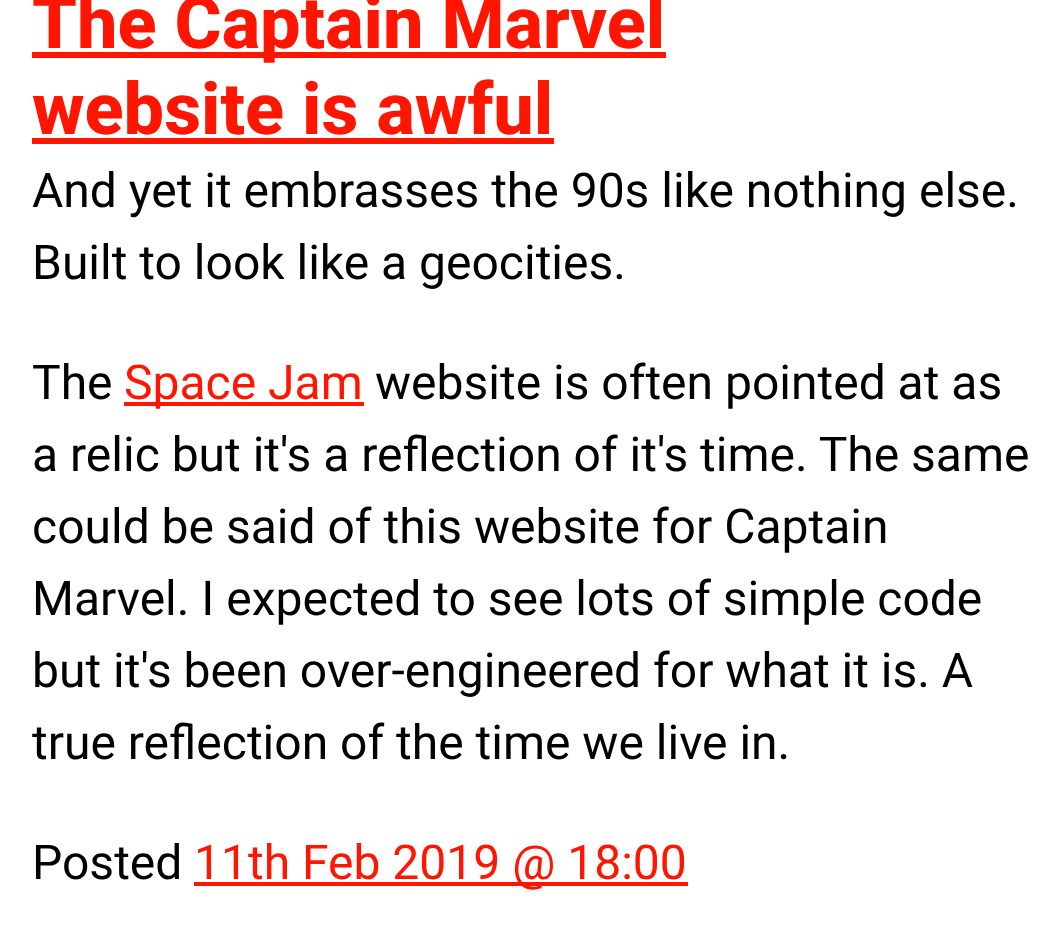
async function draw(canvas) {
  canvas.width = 1061;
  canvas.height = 949;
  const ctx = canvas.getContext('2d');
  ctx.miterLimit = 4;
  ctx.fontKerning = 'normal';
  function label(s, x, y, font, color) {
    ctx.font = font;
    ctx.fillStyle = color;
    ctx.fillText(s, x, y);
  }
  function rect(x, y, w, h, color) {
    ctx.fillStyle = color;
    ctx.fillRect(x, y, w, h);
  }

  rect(0, 0, 1061, 949, '#fff');
  rect(32, 52, 634, 6, '#ff1500');
  label('The Captain Marvel', 32, 48, '800 72px Roboto', '#ff1500');
  label('website is awful', 32, 134, '800 72px Roboto', '#ff1500');
  rect(32, 138, 522, 6, '#ff1500');
  label('And yet it embrasses the 90s like nothing else.', 32, 207, '48px Roboto', '#000');
  label('Built to look like a geocities.', 32, 279, '48px Roboto', '#000');
  label('The', 32, 399, '48px Roboto', '#000');
  rect(124, 402, 240, 4, '#ff1500');
  label('Space Jam', 124, 399, '48px Roboto', '#ff1500');
  label('website is often pointed at as', 375, 399, '48px Roboto', '#000');
  label('a relic but it\'s a reflection of it\'s time. The same', 32, 471, '48px Roboto', '#000');
  label('could be said of this website for Captain', 32, 543, '48px Roboto', '#000');
  label('Marvel. I expected to see lots of simple code', 32, 615, '48px Roboto', '#000');
  label('but it\'s been over-engineered for what it is. A', 32, 687, '48px Roboto', '#000');
  label('true reflection of the time we live in.', 32, 759, '48px Roboto', '#000');
  label('Posted', 32, 879, '48px Roboto', '#000');
  rect(194, 882, 494, 4, '#ff1500');
  label('11th Feb 2019 @ 18:00', 194, 879, '48px Roboto', '#ff1500');
}

draw(document.querySelector('canvas'));
